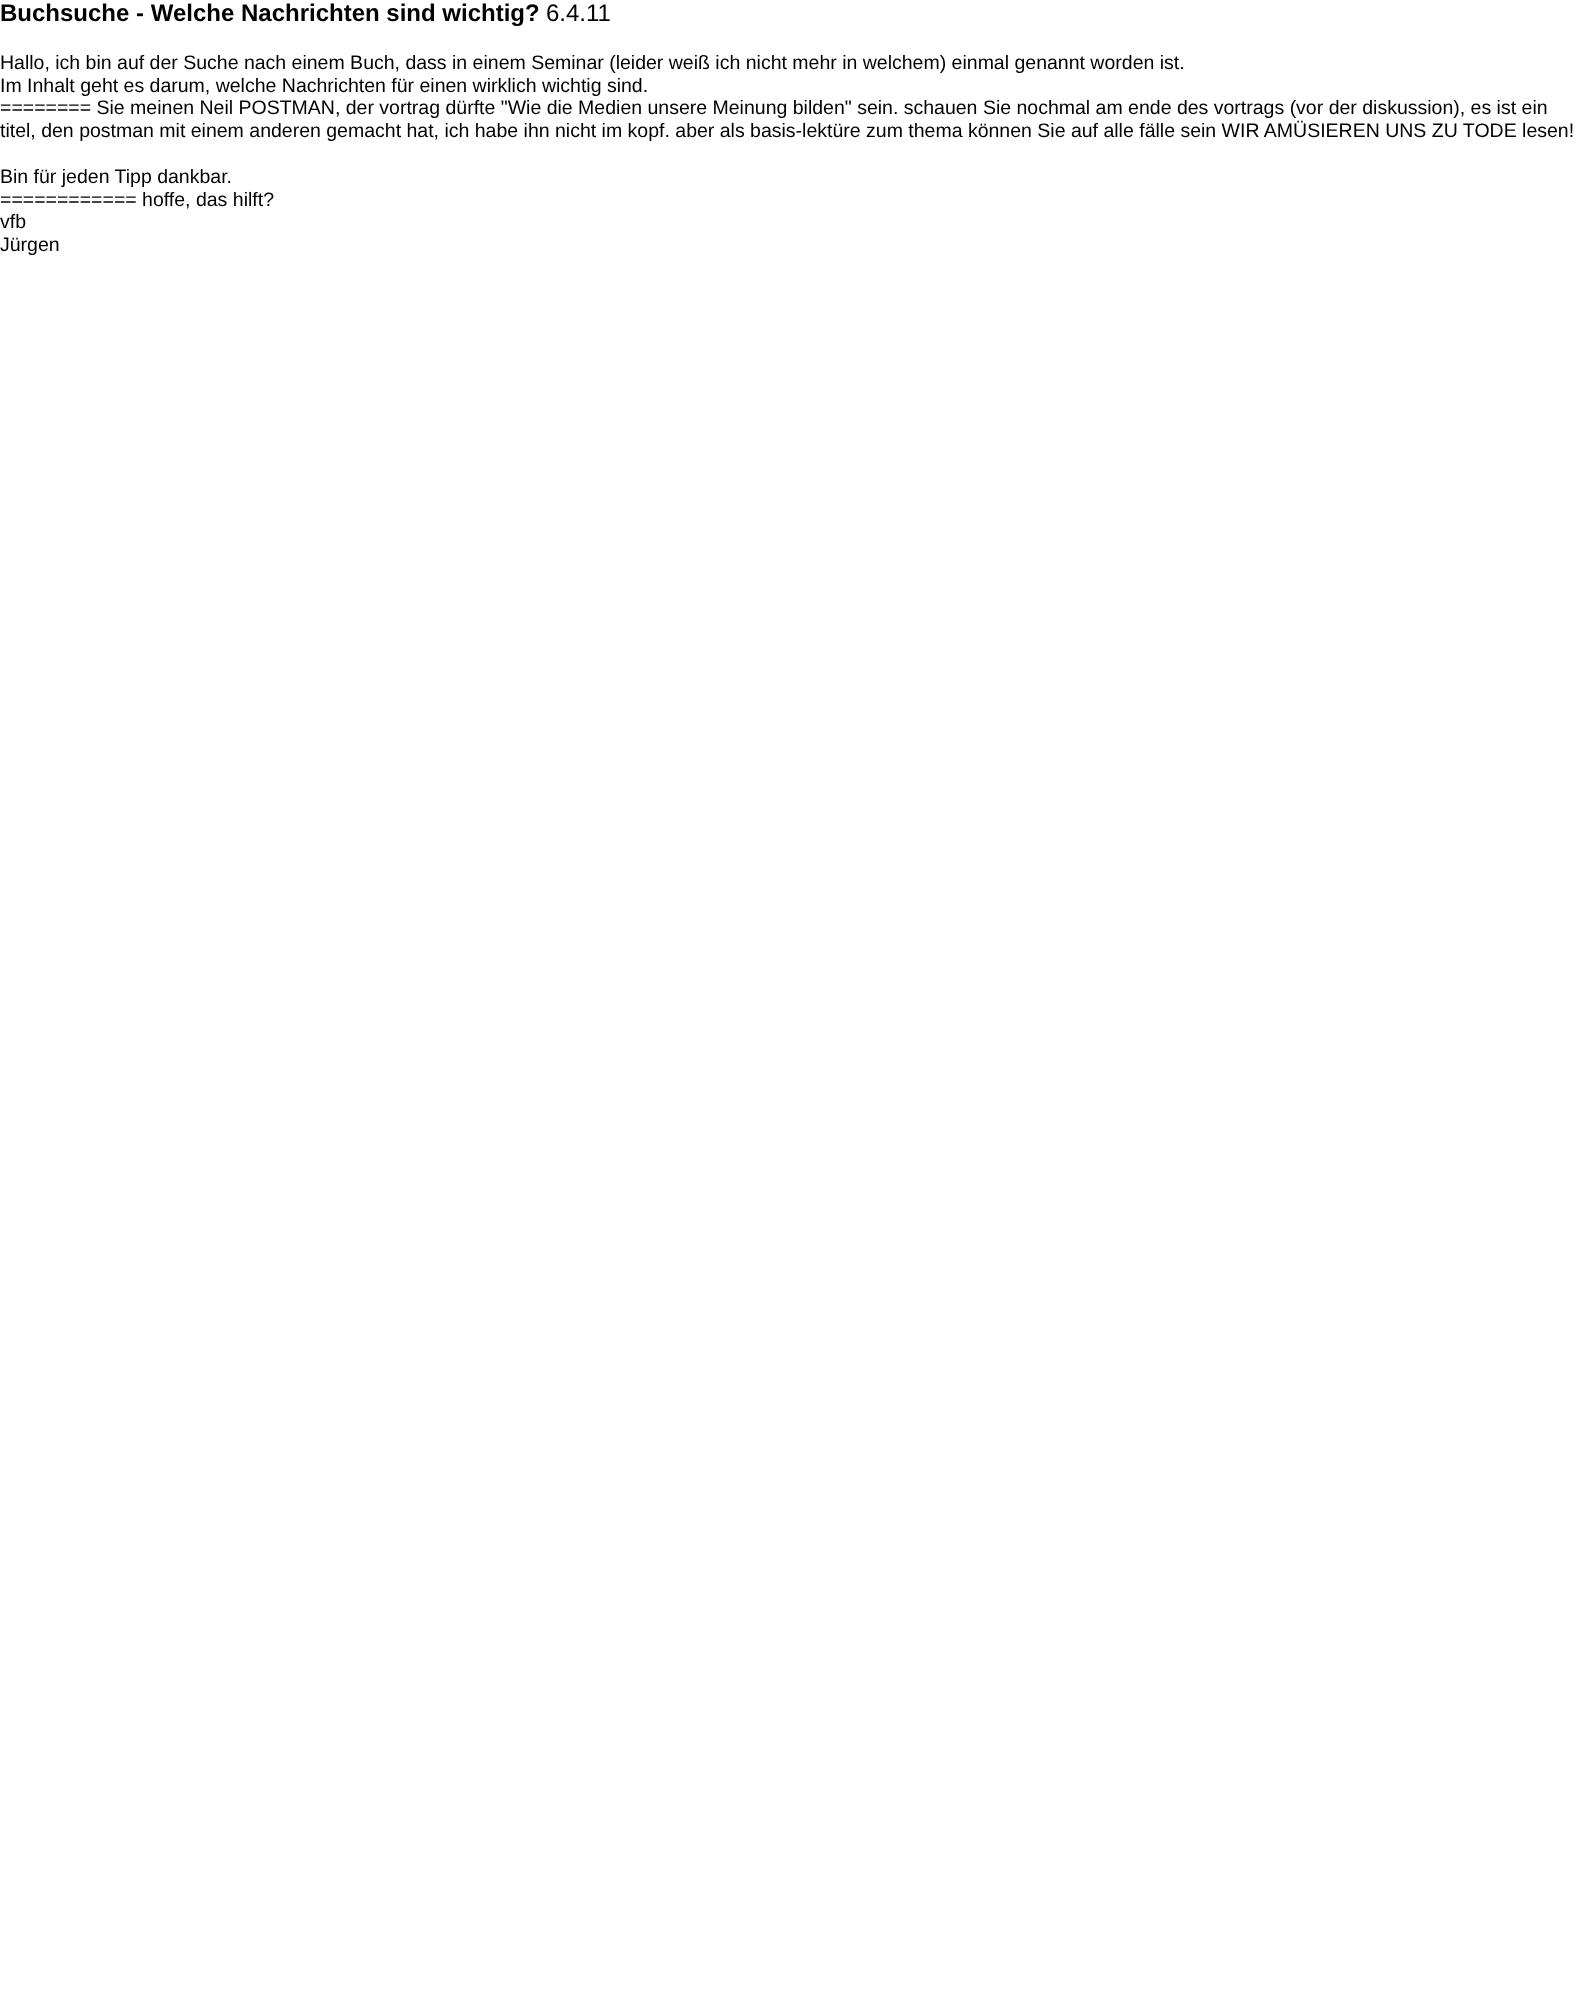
async function draw(canvas) {
  canvas.width = 1578;
  canvas.height = 2000;
  const ctx = canvas.getContext('2d');
  ctx.miterLimit = 4;
  ctx.fontKerning = 'normal';
  function label(s, x, y, font, color) {
    ctx.font = font;
    ctx.fillStyle = color;
    ctx.fillText(s, x, y);
  }
  function rect(x, y, w, h, color) {
    ctx.fillStyle = color;
    ctx.fillRect(x, y, w, h);
  }

  rect(0, 0, 1578, 2000, '#fff');
  label('Buchsuche - Welche Nachrichten sind wichtig?', 0, 21, 'bold 24px Liberation Sans', '#000');
  label('6.4.11', 546, 21, '24px Liberation Sans', '#000');
  label('Hallo, ich bin auf der Suche nach einem Buch, dass in einem Seminar (leider weiß ich nicht mehr in welchem) einmal genannt worden ist.', 0, 69, '19.5px Liberation Sans', '#000');
  label('Im Inhalt geht es darum, welche Nachrichten für einen wirklich wichtig sind.', 0, 92, '19.5px Liberation Sans', '#000');
  label('======== Sie meinen Neil POSTMAN, der vortrag dürfte "Wie die Medien unsere Meinung bilden" sein. schauen Sie nochmal am ende des vortrags (vor der diskussion), es ist ein', 0, 114, '19.5px Liberation Sans', '#000');
  label('titel, den postman mit einem anderen gemacht hat, ich habe ihn nicht im kopf. aber als basis-lektüre zum thema können Sie auf alle fälle sein WIR AMÜSIEREN UNS ZU TODE lesen!', 0, 137, '19.5px Liberation Sans', '#000');
  label('Bin für jeden Tipp dankbar.', 0, 183, '19.5px Liberation Sans', '#000');
  label('============ hoffe, das hilft?', 0, 206, '19.5px Liberation Sans', '#000');
  label('vfb', 0, 228, '19.5px Liberation Sans', '#000');
  label('Jürgen', 0, 251, '19.5px Liberation Sans', '#000');
}

draw(document.querySelector('canvas'));
